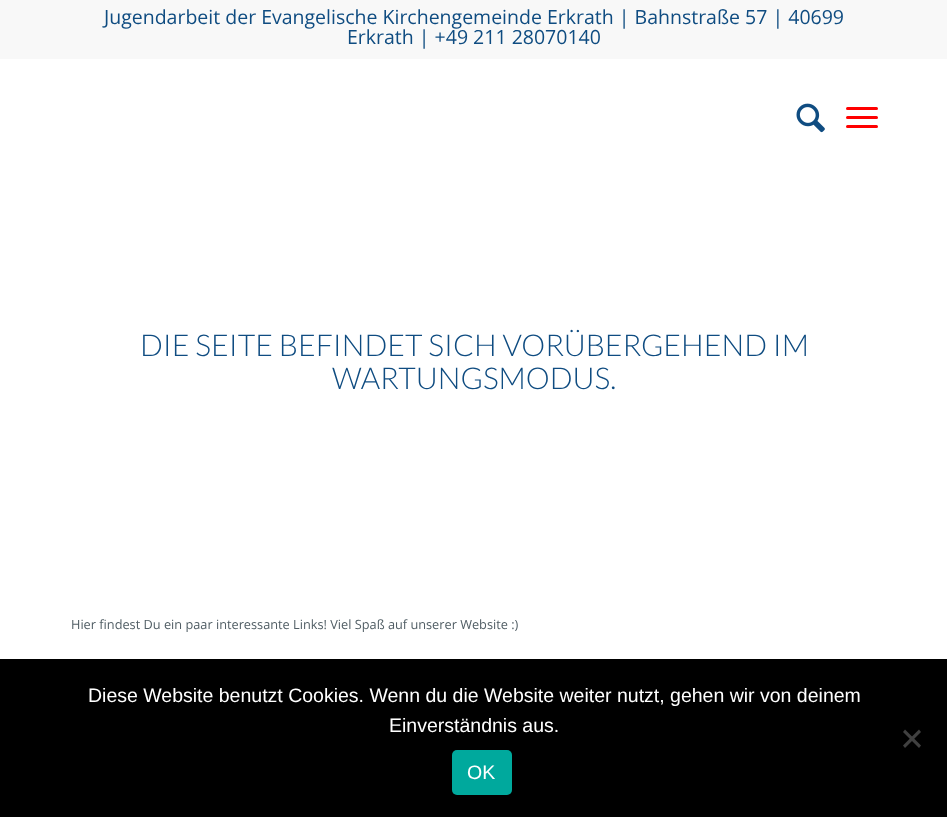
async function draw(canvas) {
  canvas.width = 947;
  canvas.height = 817;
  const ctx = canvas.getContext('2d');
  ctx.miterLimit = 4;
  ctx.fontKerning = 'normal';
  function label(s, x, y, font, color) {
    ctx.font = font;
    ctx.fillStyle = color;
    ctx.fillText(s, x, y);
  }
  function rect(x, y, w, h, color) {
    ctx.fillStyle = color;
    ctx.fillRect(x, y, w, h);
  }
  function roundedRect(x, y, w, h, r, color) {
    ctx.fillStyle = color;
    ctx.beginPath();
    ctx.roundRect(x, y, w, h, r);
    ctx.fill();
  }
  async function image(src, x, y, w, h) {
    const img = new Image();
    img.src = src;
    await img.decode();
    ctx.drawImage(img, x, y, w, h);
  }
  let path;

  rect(0, 0, 947, 817, '#fff');
  rect(0, 0, 947, 59, '#f8f8f8');
  label('Jugendarbeit der Evangelische Kirchengemeinde Erkrath | Bahnstraße 57 | 40699', 104, 24, '19.5px Open Sans', '#0f4c81');
  label('Erkrath | +49 211 28070140', 347, 44, '19.5px Open Sans', '#0f4c81');
  await image('assets/img1.png', 796, 103, 29, 30);
  roundedRect(846, 116, 32, 3, 1.5, '#f00');
  roundedRect(846, 107, 32, 3, 1.5, '#f00');
  roundedRect(846, 125, 32, 3, 1.5, '#f00');
  label('DIE SEITE BEFINDET SICH VORÜBERGEHEND IM', 140, 356, '300 30px Lato', '#0f4c81');
  label('WARTUNGSMODUS.', 332, 389, '300 30px Lato', '#0f4c81');
  label('Hier findest Du ein paar interessante Links! Viel Spaß auf unserer Website :)', 71, 629, '12.75px Open Sans', '#515e65');
  rect(0, 659, 947, 158, '#000');
  label('Diese Website benutzt Cookies. Wenn du die Website weiter nutzt, gehen wir von deinem', 88, 702, '19.5px Liberation Sans', '#fff');
  label('Einverständnis aus.', 389, 732, '19.5px Liberation Sans', '#fff');
  ctx.fillStyle = '#404040';
  path = new Path2D('M919 729.5L921 732L905 748L903 745.5Z');
  ctx.fill(path);
  path = new Path2D('M903 732L905 729.5L921 745.5L919 748Z');
  ctx.fill(path);
  roundedRect(452, 750, 60, 45, 5, '#00a99d');
  label('OK', 467, 779, '19.5px Liberation Sans', '#fff');
}

draw(document.querySelector('canvas'));
